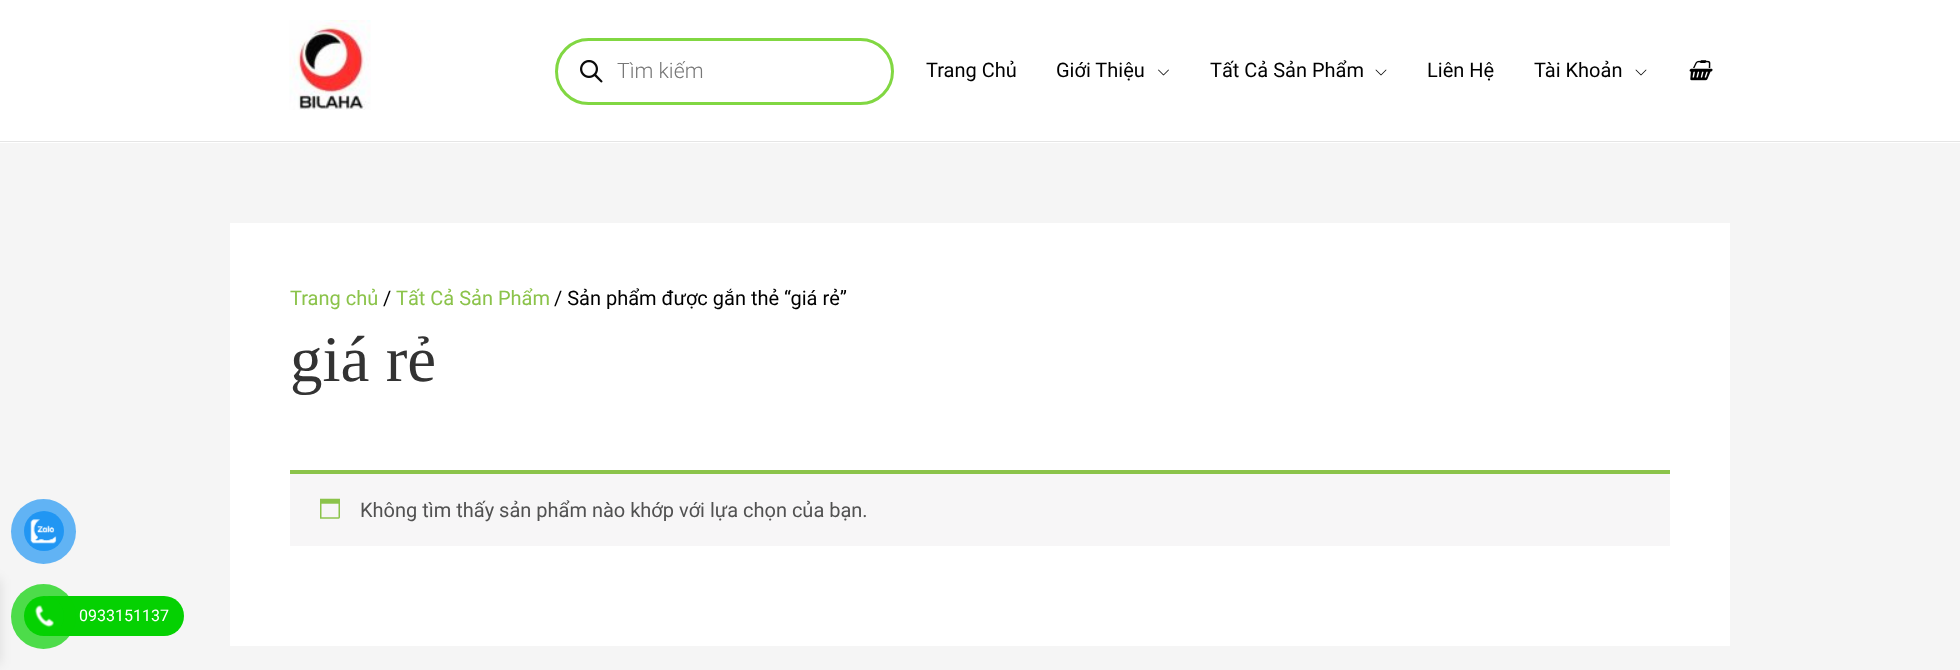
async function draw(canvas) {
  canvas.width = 1960;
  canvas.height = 670;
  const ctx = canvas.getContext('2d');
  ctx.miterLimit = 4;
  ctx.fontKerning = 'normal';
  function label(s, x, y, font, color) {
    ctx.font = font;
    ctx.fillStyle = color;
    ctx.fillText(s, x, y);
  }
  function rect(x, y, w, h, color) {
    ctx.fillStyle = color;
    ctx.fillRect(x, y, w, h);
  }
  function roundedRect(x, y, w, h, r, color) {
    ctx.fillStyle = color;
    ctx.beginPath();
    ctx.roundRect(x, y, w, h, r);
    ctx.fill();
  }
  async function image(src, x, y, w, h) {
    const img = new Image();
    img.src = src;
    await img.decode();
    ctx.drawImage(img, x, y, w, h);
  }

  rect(0, 0, 1960, 670, '#f5f5f5');
  rect(0, 0, 1960, 143, '#fff');
  rect(0, 141, 1960, 1, '#e5e5e5');
  await image('assets/img1.png', 289, 20, 82, 90);
  ctx.beginPath();
  ctx.roundRect(556.5, 39.5, 336, 64, 32);
  ctx.strokeStyle = '#81d742';
  ctx.lineWidth = 3;
  ctx.stroke();
  await image('assets/img2.png', 580, 60, 23, 23);
  label('Tìm kiếm', 617, 78, '300 21.25px Roboto', '#777');
  label('Trang Chủ', 926, 77, '20px Roboto', '#000');
  label('Giới Thiệu', 1056, 77, '20px Roboto', '#000');
  await image('assets/img3.png', 1158, 69, 11, 7);
  label('Tất Cả Sản Phẩm', 1210, 77, '20px Roboto', '#000');
  await image('assets/img4.png', 1375, 69, 12, 7);
  label('Liên Hệ', 1427, 77, '20px Roboto', '#000');
  label('Tài Khoản', 1534, 77, '20px Roboto', '#000');
  await image('assets/img4.png', 1635, 69, 12, 7);
  await image('assets/img5.png', 1689, 60, 24, 21);
  rect(230, 223, 1500, 423, '#fff');
  label('Trang chủ', 290, 305, '20px Roboto', '#8bc34a');
  label('/', 383, 305, '20px Roboto', '#000');
  label('Tất Cả Sản Phẩm', 396, 305, '20px Roboto', '#8bc34a');
  label('/ Sản phẩm được gắn thẻ “giá rẻ”', 554, 305, '20px Roboto', '#000');
  label('giá rẻ', 290, 381, '65px Liberation Serif', '#333');
  rect(290, 474, 1380, 72, '#f7f6f7');
  rect(290, 470, 1380, 4, '#8bc34a');
  await image('assets/img6.png', 320, 498, 20, 21);
  label('Không tìm thấy sản phẩm nào khớp với lựa chọn của bạn.', 360, 517, '20px Roboto', '#515151');
  ctx.fillStyle = '#61b3f4';
  ctx.beginPath();
  ctx.arc(43.5, 531.5, 32.5, 0, 2 * Math.PI);
  ctx.fill();
  roundedRect(29, 596, 155, 40, 20, '#05d102');
  ctx.fillStyle = '#05d102b3';
  ctx.beginPath();
  ctx.arc(43.5, 616.5, 32.5, 0, 2 * Math.PI);
  ctx.fill();
  ctx.fillStyle = '#0000001a';
  ctx.filter = 'blur(6px)';
  ctx.beginPath();
  ctx.rect(-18, 579, 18, 85);
  ctx.fill();
  ctx.filter = 'none';
  ctx.fillStyle = '#2196f3';
  ctx.beginPath();
  ctx.arc(44, 531, 20, 0, 2 * Math.PI);
  ctx.fill();
  await image('assets/img7.png', 30, 519, 27, 25);
  ctx.fillStyle = '#05d102';
  ctx.beginPath();
  ctx.arc(44, 616, 20, 0, 2 * Math.PI);
  ctx.fill();
  await image('assets/img8.png', 34, 605, 20, 23);
  label('0933151137', 79, 621, '16px Roboto', '#fff');
}

draw(document.querySelector('canvas'));
